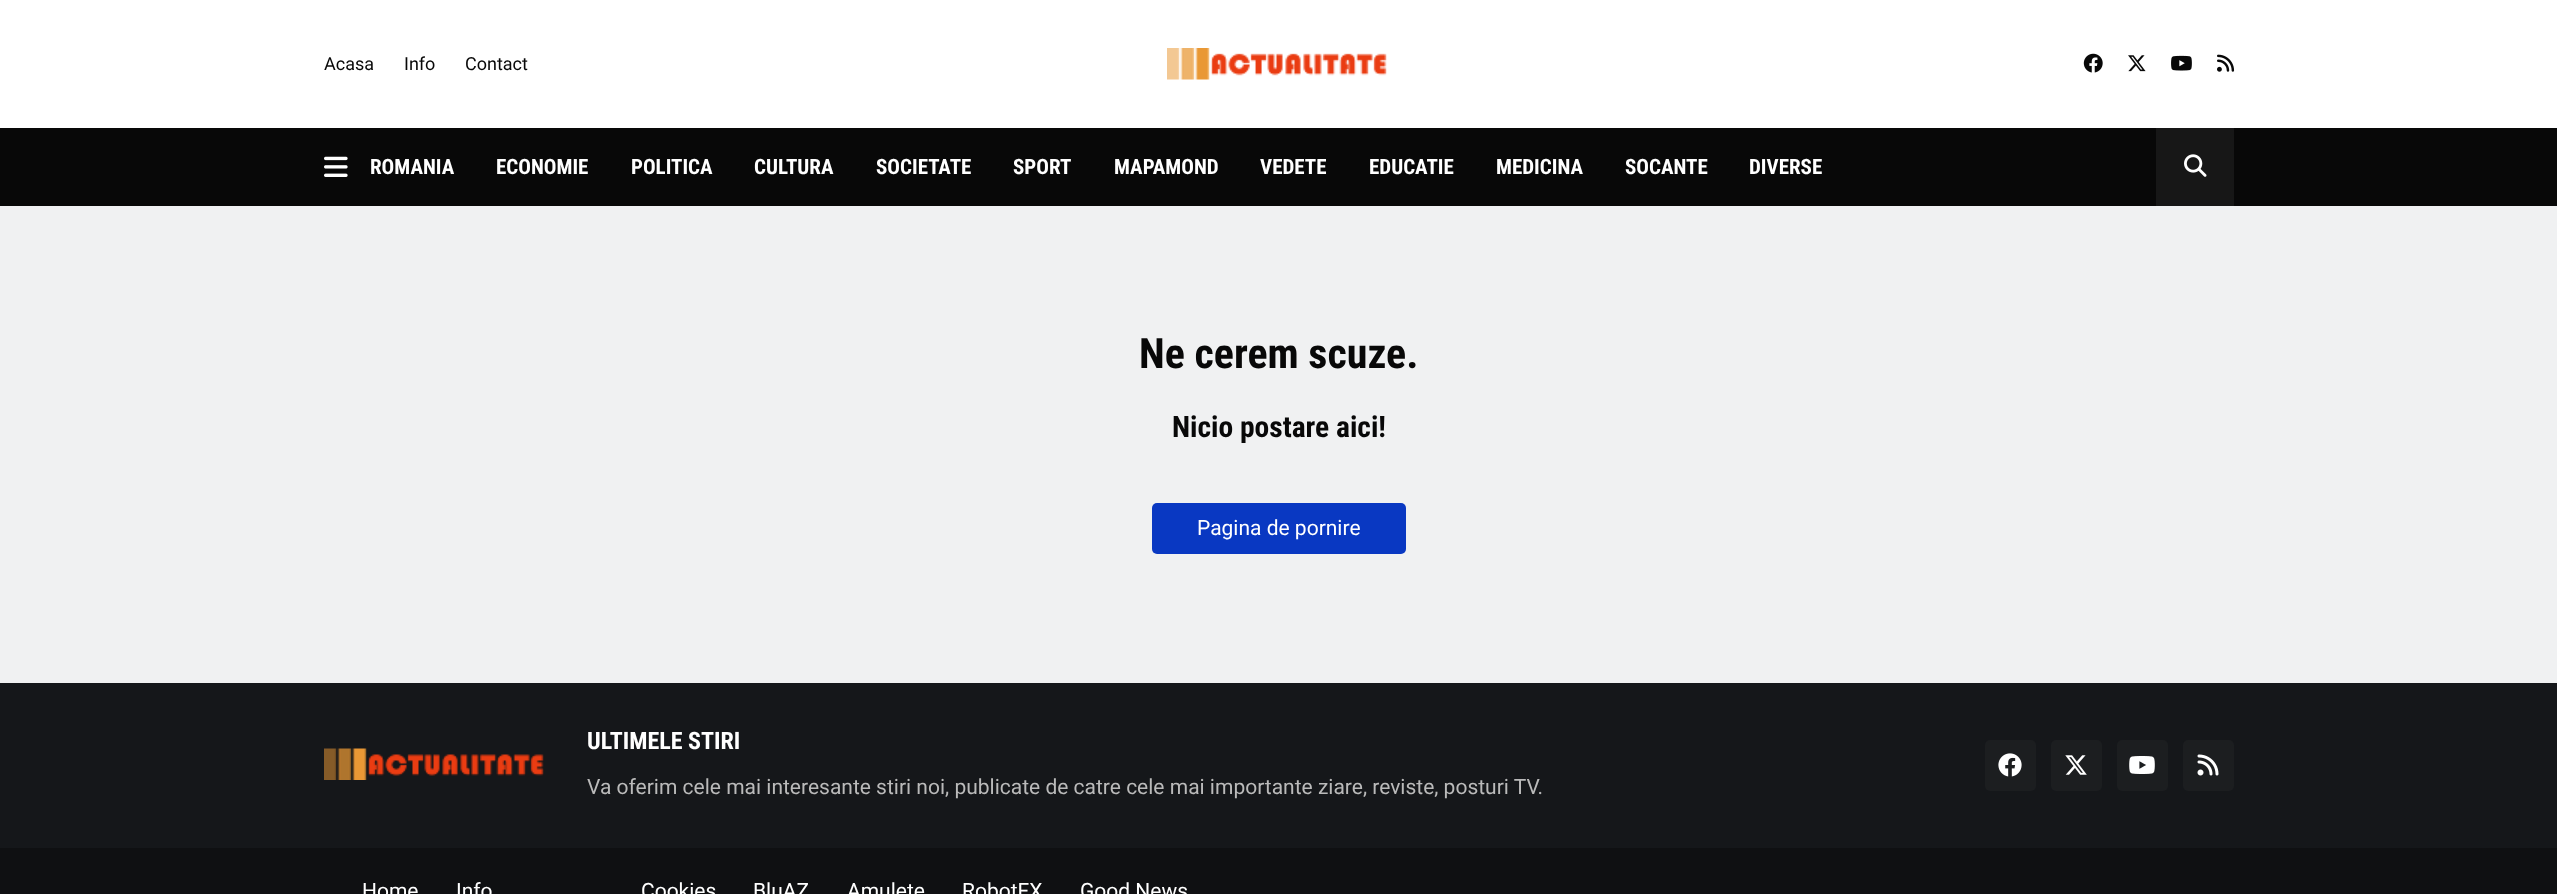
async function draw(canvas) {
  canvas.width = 2557;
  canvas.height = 894;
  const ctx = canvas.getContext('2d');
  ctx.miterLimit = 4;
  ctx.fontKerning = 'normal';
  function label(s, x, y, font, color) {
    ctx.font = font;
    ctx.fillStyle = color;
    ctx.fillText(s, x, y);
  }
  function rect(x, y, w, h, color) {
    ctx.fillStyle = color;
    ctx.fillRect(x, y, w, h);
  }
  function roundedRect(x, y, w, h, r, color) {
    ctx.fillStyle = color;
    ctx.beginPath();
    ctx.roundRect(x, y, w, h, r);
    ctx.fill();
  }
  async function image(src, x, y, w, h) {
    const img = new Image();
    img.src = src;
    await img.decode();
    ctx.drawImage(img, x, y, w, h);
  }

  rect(0, 0, 2557, 894, '#f0f1f2');
  rect(0, 0, 2557, 128, '#fff');
  label('Acasa', 324, 70, '18px Roboto', '#080808');
  label('Info', 404, 70, '18px Roboto', '#080808');
  label('Contact', 465, 70, '18px Roboto', '#080808');
  await image('assets/img1.png', 1167, 48, 220, 32);
  await image('assets/img2.png', 2083, 53, 20, 20);
  await image('assets/img3.png', 2128, 55, 18, 17);
  await image('assets/img4.png', 2171, 55, 21, 16);
  await image('assets/img5.png', 2217, 54, 18, 18);
  rect(0, 128, 2557, 78, '#080808');
  await image('assets/img6.png', 324, 156, 24, 21);
  label('ROMANIA', 370, 174, 'bold 21px Roboto Condensed', '#fff');
  label('ECONOMIE', 496, 174, 'bold 21px Roboto Condensed', '#fff');
  label('POLITICA', 631, 174, 'bold 21px Roboto Condensed', '#fff');
  label('CULTURA', 754, 174, 'bold 21px Roboto Condensed', '#fff');
  label('SOCIETATE', 876, 174, 'bold 21px Roboto Condensed', '#fff');
  label('SPORT', 1013, 174, 'bold 21px Roboto Condensed', '#fff');
  label('MAPAMOND', 1114, 174, 'bold 21px Roboto Condensed', '#fff');
  label('VEDETE', 1260, 174, 'bold 21px Roboto Condensed', '#fff');
  label('EDUCATIE', 1369, 174, 'bold 21px Roboto Condensed', '#fff');
  label('MEDICINA', 1496, 174, 'bold 21px Roboto Condensed', '#fff');
  label('SOCANTE', 1625, 174, 'bold 21px Roboto Condensed', '#fff');
  label('DIVERSE', 1749, 174, 'bold 21px Roboto Condensed', '#fff');
  rect(2156, 128, 78, 78, '#171717');
  await image('assets/img7.png', 2184, 154, 23, 23);
  label('Ne cerem scuze.', 1139, 368, 'bold 42px Roboto Condensed', '#080808');
  label('Nicio postare aici!', 1172, 437, 'bold 29.5px Roboto Condensed', '#080808');
  roundedRect(1152, 503, 254, 51, 5, '#0938c2');
  label('Pagina de pornire', 1197, 535, '21px Roboto', '#fff');
  rect(0, 683, 2557, 165, '#15171a');
  await image('assets/img8.png', 324, 748, 220, 32);
  label('ULTIMELE STIRI', 587, 749, 'bold 24px Roboto Condensed', '#fff');
  label('Va oferim cele mai interesante stiri noi, publicate de catre cele mai importante ziare, reviste, posturi TV.', 587, 794, '21px Roboto', '#bababa');
  roundedRect(1985, 740, 51, 51, 5, '#1c1e20');
  await image('assets/img9.png', 1998, 753, 24, 24);
  roundedRect(2051, 740, 51, 51, 5, '#1c1e20');
  await image('assets/img10.png', 2065, 755, 22, 20);
  roundedRect(2117, 740, 51, 51, 5, '#1c1e20');
  await image('assets/img11.png', 2129, 756, 26, 18);
  roundedRect(2183, 740, 51, 51, 5, '#1c1e20');
  await image('assets/img12.png', 2197, 754, 22, 22);
  rect(0, 848, 2557, 46, '#0f1012');
  label('Home', 362, 898, '21px Roboto', '#fff');
  label('Info', 456, 898, '21px Roboto', '#fff');
  label('Cookies', 641, 898, '21px Roboto', '#fff');
  label('BluAZ', 753, 898, '21px Roboto', '#fff');
  label('Amulete', 847, 898, '21px Roboto', '#fff');
  label('RobotFX', 962, 898, '21px Roboto', '#fff');
  label('Good News', 1080, 898, '21px Roboto', '#fff');
}

draw(document.querySelector('canvas'));
